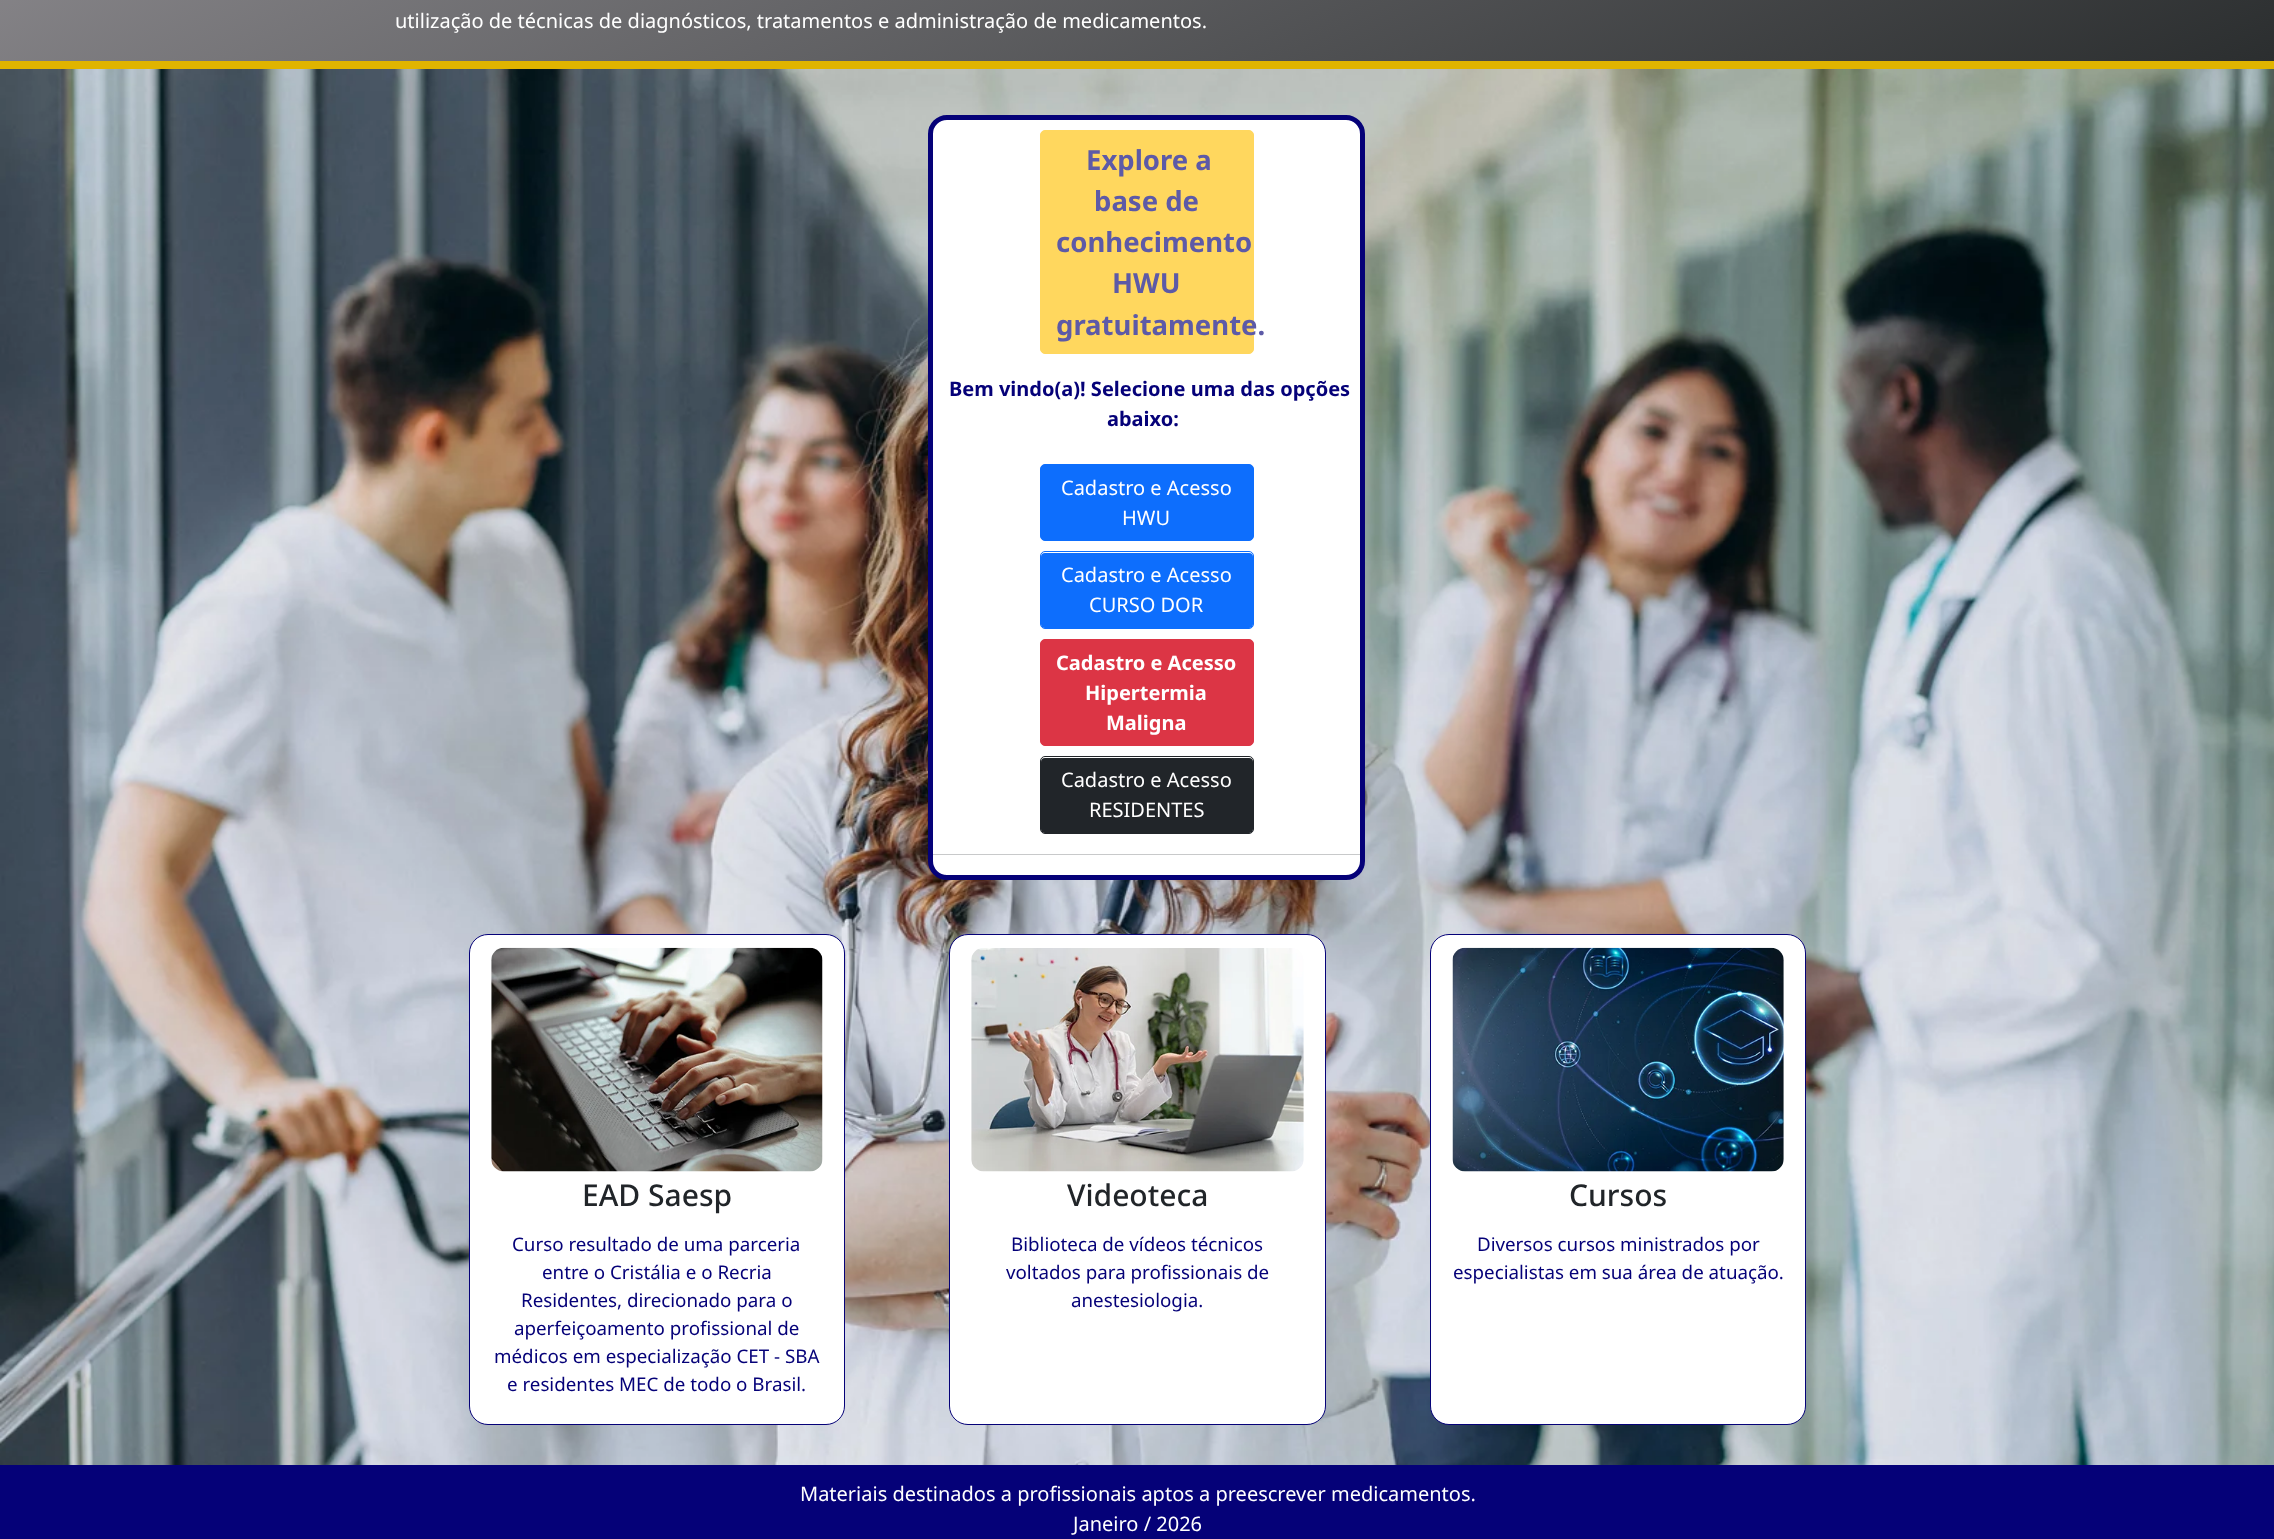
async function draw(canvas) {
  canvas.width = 2274;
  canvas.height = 1539;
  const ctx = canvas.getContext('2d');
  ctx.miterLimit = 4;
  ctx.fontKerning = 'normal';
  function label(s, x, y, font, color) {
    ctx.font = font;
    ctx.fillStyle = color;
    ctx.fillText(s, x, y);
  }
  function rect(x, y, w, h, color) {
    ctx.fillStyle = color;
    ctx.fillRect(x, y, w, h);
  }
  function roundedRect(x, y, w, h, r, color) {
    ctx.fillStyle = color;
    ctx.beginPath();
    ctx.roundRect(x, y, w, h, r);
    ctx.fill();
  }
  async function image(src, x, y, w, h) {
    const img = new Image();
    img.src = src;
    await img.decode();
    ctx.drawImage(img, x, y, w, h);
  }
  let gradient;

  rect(0, 0, 2274, 1539, '#fff');
  gradient = ctx.createLinearGradient(872, -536, 1403, 506);
  gradient.addColorStop(0, '#8a888c');
  gradient.addColorStop(1, '#2b2e2f');
  ctx.fillStyle = gradient;
  ctx.fillRect(0, 0, 2274, 61);
  rect(0, 61, 2274, 8, '#e0b400');
  label('utilização de técnicas de diagnósticos, tratamentos e administração de medicamentos.', 395, 28, '20px Noto Sans', '#fff');
  await image('assets/img1.png', 0, 69, 2274, 1396);
  ctx.beginPath();
  ctx.roundRect(930.5, 117.5, 432, 760, 16.5);
  ctx.fill();
  ctx.strokeStyle = '#050178';
  ctx.lineWidth = 5;
  ctx.stroke();
  ctx.fillStyle = '#ffd75e';
  ctx.beginPath();
  ctx.roundRect(1040.5, 130.5, 213, 223, 4.5);
  ctx.fill();
  ctx.strokeStyle = '#ffd75e';
  ctx.lineWidth = 1;
  ctx.stroke();
  label('Explore a', 1086, 170, 'bold 27.5px Noto Sans', '#5d5aa7');
  label('base de', 1094, 211, 'bold 27.5px Noto Sans', '#5d5aa7');
  label('conhecimento', 1056, 252, 'bold 27.5px Noto Sans', '#5d5aa7');
  label('HWU', 1112, 293, 'bold 27.5px Noto Sans', '#5d5aa7');
  label('gratuitamente.', 1056, 335, 'bold 27.5px Noto Sans', '#5d5aa7');
  label('Bem vindo(a)! Selecione uma das opções', 949, 396, 'bold 20px Noto Sans', '#050178');
  label('abaixo:', 1107, 426, 'bold 20px Noto Sans', '#050178');
  ctx.fillStyle = '#0d6efd';
  ctx.beginPath();
  ctx.roundRect(1040.5, 464.5, 213, 76, 4.5);
  ctx.fill();
  ctx.strokeStyle = '#0d6efd';
  ctx.stroke();
  label('Cadastro e Acesso', 1061, 495, '20px Noto Sans', '#fff');
  label('HWU', 1122, 525, '20px Noto Sans', '#fff');
  roundedRect(1041, 553, 212, 75, 4, '#0d6efd');
  ctx.beginPath();
  ctx.roundRect(1040.5, 551.5, 213, 77, 4.5);
  ctx.stroke();
  label('Cadastro e Acesso', 1061, 582, '20px Noto Sans', '#fff');
  label('CURSO DOR', 1089, 612, '20px Noto Sans', '#fff');
  ctx.fillStyle = '#dc3545';
  ctx.beginPath();
  ctx.roundRect(1040.5, 639.5, 213, 106, 4.5);
  ctx.fill();
  ctx.strokeStyle = '#dc3545';
  ctx.stroke();
  label('Cadastro e Acesso', 1056, 670, 'bold 20px Noto Sans', '#fff');
  label('Hipertermia', 1085, 700, 'bold 20px Noto Sans', '#fff');
  label('Maligna', 1106, 730, 'bold 20px Noto Sans', '#fff');
  roundedRect(1041, 758, 212, 75, 4, '#212529');
  ctx.beginPath();
  ctx.roundRect(1040.5, 756.5, 213, 77, 4.5);
  ctx.strokeStyle = '#212529';
  ctx.stroke();
  label('Cadastro e Acesso', 1061, 787, '20px Noto Sans', '#fff');
  label('RESIDENTES', 1089, 817, '20px Noto Sans', '#fff');
  rect(933, 854, 427, 1, '#c8c9ca');
  ctx.fillStyle = '#fff';
  ctx.beginPath();
  ctx.roundRect(469.5, 934.5, 375, 490, 18.5);
  ctx.fill();
  ctx.strokeStyle = '#050178';
  ctx.stroke();
  await image('assets/img2.png', 491, 947, 332, 225);
  label('EAD Saesp', 582, 1206, '500 30px Noto Sans', '#212529');
  label('Curso resultado de uma parceria', 512, 1251, '18.75px Noto Sans', '#050178');
  label('entre o Cristália e o Recria', 542, 1279, '18.75px Noto Sans', '#050178');
  label('Residentes, direcionado para o', 521, 1307, '18.75px Noto Sans', '#050178');
  label('aperfeiçoamento profissional de', 514, 1335, '18.75px Noto Sans', '#050178');
  label('médicos em especialização CET - SBA', 494, 1363, '18.75px Noto Sans', '#050178');
  label('e residentes MEC de todo o Brasil.', 507, 1391, '18.75px Noto Sans', '#050178');
  ctx.fillStyle = '#fff';
  ctx.beginPath();
  ctx.roundRect(949.5, 934.5, 376, 490, 18.5);
  ctx.fill();
  ctx.stroke();
  await image('assets/img3.png', 971, 948, 333, 224);
  label('Videoteca', 1067, 1206, '500 30px Noto Sans', '#212529');
  label('Biblioteca de vídeos técnicos', 1011, 1251, '18.75px Noto Sans', '#050178');
  label('voltados para profissionais de', 1006, 1279, '18.75px Noto Sans', '#050178');
  label('anestesiologia.', 1071, 1307, '18.75px Noto Sans', '#050178');
  ctx.fillStyle = '#fff';
  ctx.beginPath();
  ctx.roundRect(1430.5, 934.5, 375, 490, 18.5);
  ctx.fill();
  ctx.stroke();
  await image('assets/img4.png', 1452, 947, 332, 225);
  label('Cursos', 1569, 1206, '500 30px Noto Sans', '#212529');
  label('Diversos cursos ministrados por', 1477, 1251, '18.75px Noto Sans', '#050178');
  label('especialistas em sua área de atuação.', 1453, 1279, '18.75px Noto Sans', '#050178');
  rect(0, 1465, 2274, 74, '#050178');
  label('Materiais destinados a profissionais aptos a preescrever medicamentos.', 800, 1501, '20px Noto Sans', '#fff');
  label('Janeiro / 2026', 1073, 1531, '20px Noto Sans', '#fff');
}

draw(document.querySelector('canvas'));
